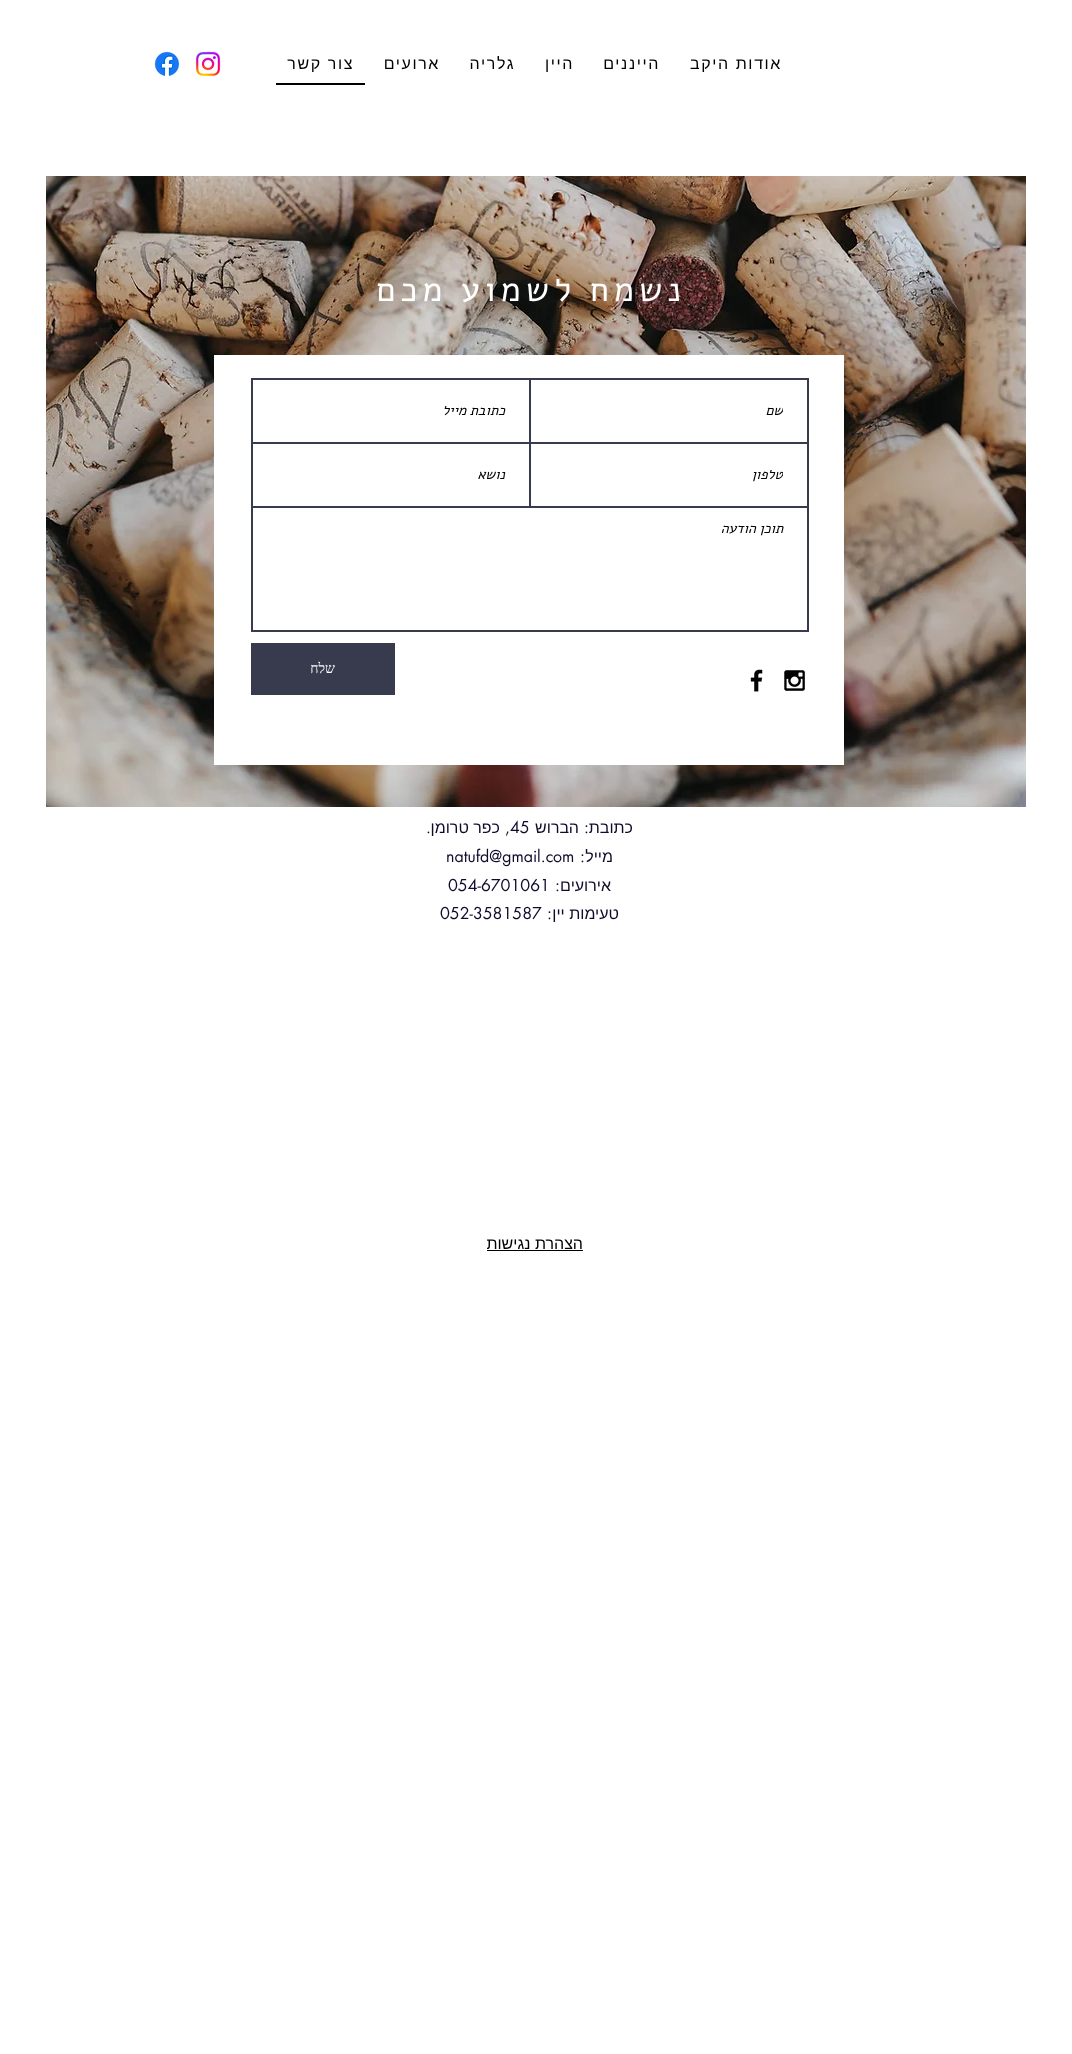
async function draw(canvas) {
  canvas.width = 1072;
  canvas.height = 2054;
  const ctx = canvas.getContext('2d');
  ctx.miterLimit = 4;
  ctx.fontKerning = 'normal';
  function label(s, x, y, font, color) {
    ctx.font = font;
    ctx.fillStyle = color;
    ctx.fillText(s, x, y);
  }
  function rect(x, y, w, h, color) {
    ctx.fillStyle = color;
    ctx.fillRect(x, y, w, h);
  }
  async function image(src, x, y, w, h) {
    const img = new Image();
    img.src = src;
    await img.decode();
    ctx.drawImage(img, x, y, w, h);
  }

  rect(0, 0, 1072, 2054, '#fff');
  ctx.letterSpacing = '1.6px';
  ctx.direction = 'rtl';
  label('אודות היקב', 782, 69, '16px Liberation Sans', '#000');
  label('הייננים', 660, 69, '16px Liberation Sans', '#000');
  label('היין', 574, 69, '16px Liberation Sans', '#000');
  label('גלריה', 515, 69, '16px Liberation Sans', '#000');
  label('ארועים', 440, 69, '16px Liberation Sans', '#000');
  rect(276, 83, 89, 2, '#000');
  label('צור קשר', 354, 69, '16px Liberation Sans', '#000');
  await image('assets/img1.png', 195, 51, 26, 26);
  await image('assets/img2.png', 154, 51, 26, 25);
  await image('assets/img3.png', 46, 176, 980, 631);
  ctx.letterSpacing = '5.1px';
  label('נשמח לשמוע מכם', 686, 301, '34px Alef', '#fff');
  rect(214, 355, 630, 410, '#fff');
  ctx.strokeStyle = '#373b4d';
  ctx.lineWidth = 2;
  ctx.strokeRect(530, 379, 278, 64);
  ctx.save();
  ctx.beginPath();
  ctx.rect(534, 401, 249, 19);
  ctx.clip();
  ctx.letterSpacing = '0px';
  label('שם', 783, 415, 'italic 14px Alef', '#000');
  ctx.restore();
  ctx.strokeRect(252, 379, 278, 64);
  ctx.letterSpacing = '0px';
  label('כתובת מייל', 505, 415, 'italic 14px Alef', '#000');
  ctx.strokeRect(530, 443, 278, 64);
  ctx.save();
  ctx.beginPath();
  ctx.rect(534, 465, 249, 19);
  ctx.clip();
  label('טלפון', 783, 479, 'italic 14px Alef', '#000');
  ctx.restore();
  ctx.strokeRect(252, 443, 278, 64);
  label('נושא', 505, 479, 'italic 14px Alef', '#000');
  ctx.strokeRect(252, 507, 556, 124);
  label('תוכן הודעה', 783, 533, 'italic 14px Alef', '#000');
  rect(251, 643, 144, 52, '#373b4d');
  label('שלח', 335, 673, '14px Liberation Serif', '#fff');
  await image('assets/img4.png', 784, 670, 21, 21);
  await image('assets/img5.png', 750, 669, 13, 23);
  label('כתובת', 633, 833, '16px Liberation Sans', '#110a2b');
  label(':', 589, 833, '16px futura', '#110a2b');
  label('ה', 579, 833, '16px Liberation Sans', '#110a2b');
  label('ברוש', 569, 833, '16px Liberation Sans', '#110a2b');
  ctx.direction = 'ltr';
  label('45', 510, 833, '16px futura', '#110a2b');
  ctx.direction = 'rtl';
  label(',', 510, 833, '16px futura', '#110a2b');
  label('כפר טרומן', 500, 833, '16px Liberation Sans', '#110a2b');
  label('.', 431, 833, '16px futura', '#110a2b');
  label('מייל', 613, 862, '16px Liberation Sans', '#110a2b');
  label(':', 585, 862, '16px futura', '#110a2b');
  ctx.direction = 'ltr';
  label('natufd@gmail.com', 446, 862, '16px futura', '#110a2b');
  ctx.direction = 'rtl';
  label('אירועים', 611, 891, '16px Liberation Sans', '#110a2b');
  label(':', 560, 891, '16px futura', '#110a2b');
  ctx.direction = 'ltr';
  label('054-6701061', 448, 891, '16px futura', '#110a2b');
  ctx.direction = 'rtl';
  label('טעימות יין', 619, 919, '16px Liberation Sans', '#110a2b');
  label(':', 552, 919, '16px futura', '#110a2b');
  ctx.direction = 'ltr';
  label('052-3581587', 440, 919, '16px futura', '#110a2b');
  ctx.direction = 'rtl';
  label('הצהרת נגישות', 583, 1249, '16px Liberation Sans', '#000');
  rect(487, 1250, 96, 1, '#000');
}

draw(document.querySelector('canvas'));
